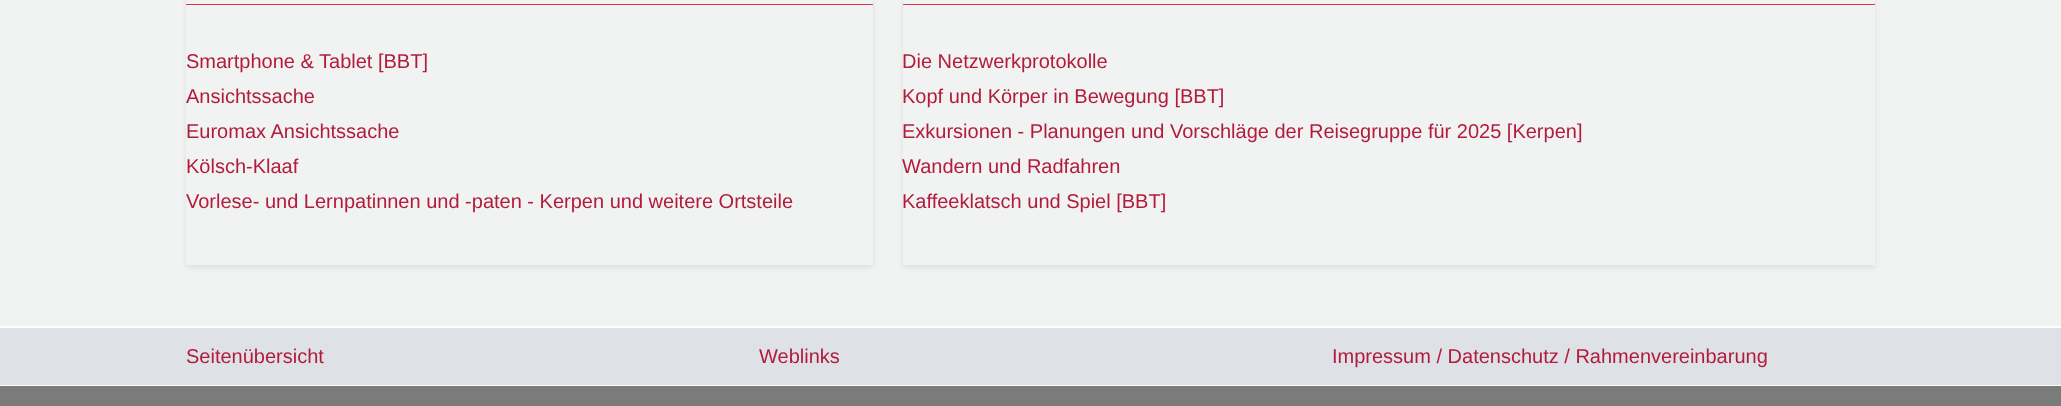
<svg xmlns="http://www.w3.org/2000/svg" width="2061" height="406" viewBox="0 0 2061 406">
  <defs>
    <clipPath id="clip1"><path d="M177 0H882V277H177ZM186-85H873V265H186Z" clip-rule="evenodd"/></clipPath>
    <clipPath id="clip2"><path d="M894 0H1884V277H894ZM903-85H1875V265H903Z" clip-rule="evenodd"/></clipPath>
  </defs>
  <rect width="100%" height="100%" fill="rgb(255,255,255)"/>
  <rect x="0" y="0" width="2061" height="326" fill="rgb(241,242,242)"/>
  <g clip-path="url(#clip1)">
    <rect x="186" y="-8" width="687" height="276" fill="rgba(0,0,0,0.07)" filter="blur(2.5px)"/>
  </g>
  <rect x="186" y="4" width="687" height="1" fill="rgb(220,53,69)"/>
  <g font-family="Liberation Sans" font-size="20" fill="rgb(178,27,59)">
    <text>
      <tspan x="186" y="68">Smartphone &amp; Tablet [BBT]</tspan>
      <tspan x="186" y="103">Ansichtssache</tspan>
      <tspan x="186" y="138">Euromax Ansichtssache</tspan>
      <tspan x="186" y="173">Kölsch-Klaaf</tspan>
      <tspan x="186" y="208">Vorlese- und Lernpatinnen und -paten - Kerpen und weitere Ortsteile</tspan>
    </text>
  </g>
  <g clip-path="url(#clip2)">
    <rect x="903" y="-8" width="972" height="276" fill="rgba(0,0,0,0.07)" filter="blur(2.5px)"/>
  </g>
  <rect x="903" y="4" width="972" height="1" fill="rgb(220,53,69)"/>
  <g font-family="Liberation Sans" font-size="20" fill="rgb(178,27,59)">
    <text>
      <tspan x="902" y="68">Die Netzwerkprotokolle</tspan>
      <tspan x="902" y="103">Kopf und Körper in Bewegung [BBT]</tspan>
      <tspan x="902" y="138">Exkursionen - Planungen und Vorschläge der Reisegruppe für 2025 [Kerpen]</tspan>
      <tspan x="902" y="173">Wandern und Radfahren</tspan>
      <tspan x="902" y="208">Kaffeeklatsch und Spiel [BBT]</tspan>
    </text>
  </g>
  <rect x="0" y="328" width="2061" height="57" fill="rgb(222,226,230)"/>
  <g font-family="Liberation Sans" font-size="20" fill="rgb(178,27,59)">
    <text x="186" y="363">Seitenübersicht</text>
    <text x="759" y="363">Weblinks</text>
    <text x="1332" y="363">Impressum / Datenschutz / Rahmenvereinbarung</text>
  </g>
  <rect x="0" y="386" width="2061" height="20" fill="rgb(123,123,123)"/>
</svg>
